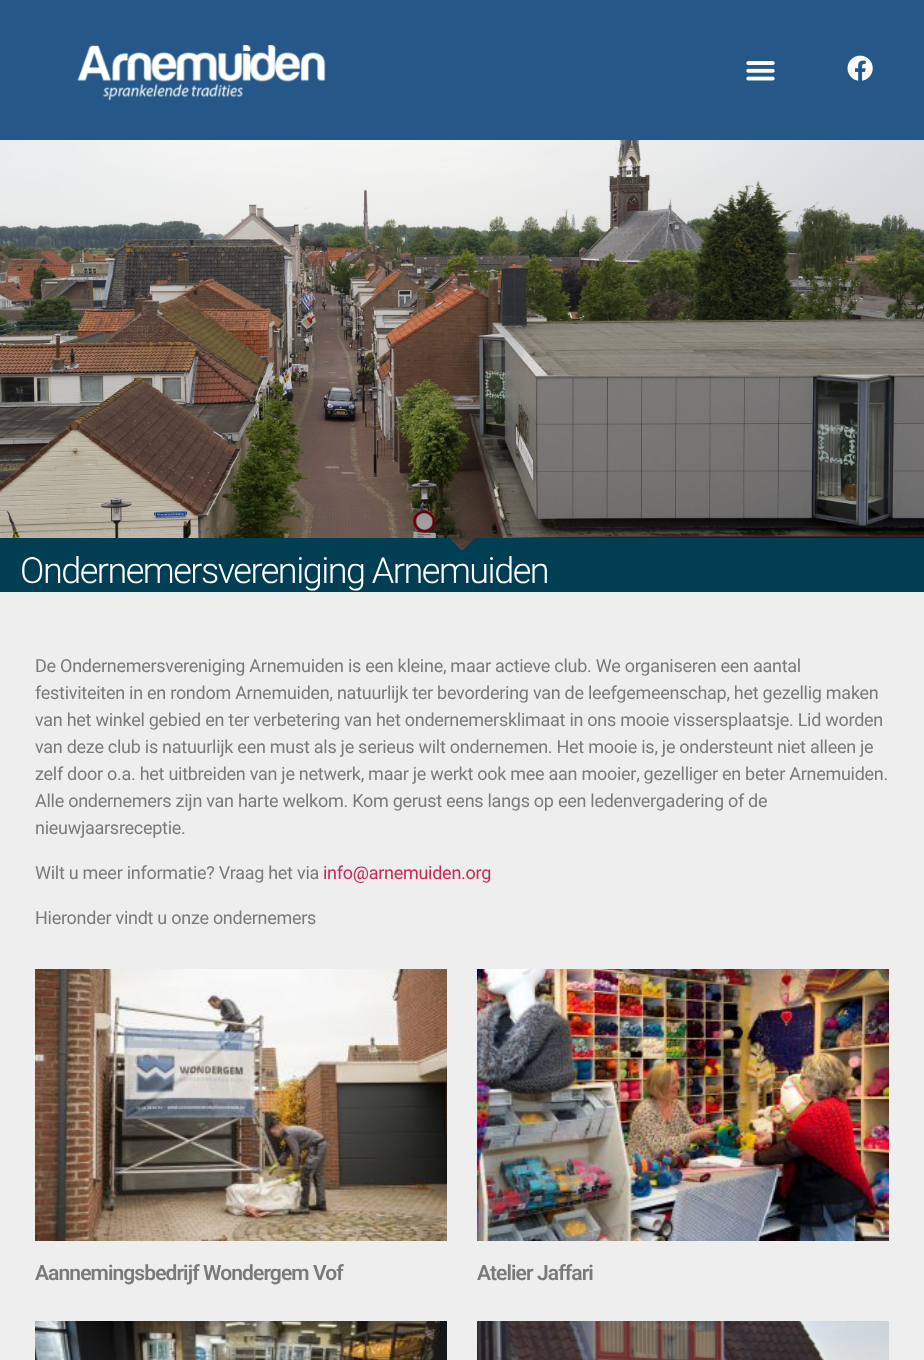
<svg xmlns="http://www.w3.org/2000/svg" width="924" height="1360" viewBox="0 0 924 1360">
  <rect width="100%" height="100%" fill="rgb(255,255,255)"/>
  <rect x="0" y="0" width="924" height="140" fill="rgb(37,88,137)"/>
  <image x="77" y="45" width="249" height="55" href="pic1.png"/>
  <image x="746" y="61" width="29" height="20" href="pic2.png"/>
  <image x="847" y="55" width="26" height="26" href="pic3.png"/>
  <image x="0" y="140" width="924" height="410" href="pic4.png"/>
  <path d="M475 538L462 551L449 538H0V551H924V538" fill="rgb(0,62,83)"/>
  <rect x="0" y="550" width="924" height="42" fill="rgb(0,62,83)"/>
  <text x="20" y="583" font-family="Roboto" font-size="36" font-weight="300" letter-spacing="-1.5" fill="rgb(255,255,255)">Ondernemersvereniging Arnemuiden</text>
  <rect x="0" y="592" width="924" height="768" fill="rgb(238,238,238)"/>
  <g font-family="Roboto" font-size="18" letter-spacing="-0.27" fill="rgb(122,122,122)">
    <text>
      <tspan x="35" y="672">De Ondernemersvereniging Arnemuiden is een kleine, maar actieve club. We organiseren een aantal</tspan>
      <tspan x="35" y="699">festiviteiten in en rondom Arnemuiden, natuurlijk ter bevordering van de leefgemeenschap, het gezellig maken</tspan>
      <tspan x="35" y="726">van het winkel gebied en ter verbetering van het ondernemersklimaat in ons mooie vissersplaatsje. Lid worden</tspan>
      <tspan x="35" y="753">van deze club is natuurlijk een must als je serieus wilt ondernemen. Het mooie is, je ondersteunt niet alleen je</tspan>
      <tspan x="35" y="780">zelf door o.a. het uitbreiden van je netwerk, maar je werkt ook mee aan mooier, gezelliger en beter Arnemuiden.</tspan>
      <tspan x="35" y="807">Alle ondernemers zijn van harte welkom. Kom gerust eens langs op een ledenvergadering of de</tspan>
      <tspan x="35" y="834">nieuwjaarsreceptie.</tspan>
    </text>
    <text x="35" y="879">Wilt u meer informatie? Vraag het via</text>
  </g>
  <text x="323" y="879" font-family="Roboto" font-size="18" letter-spacing="-0.27" fill="rgb(205,38,83)">info@arnemuiden.org</text>
  <text x="35" y="924" font-family="Roboto" font-size="18" letter-spacing="-0.27" fill="rgb(122,122,122)">Hieronder vindt u onze ondernemers</text>
  <image x="35" y="969" width="412" height="272" href="pic5.png"/>
  <text x="35" y="1280" font-family="Roboto" font-size="21" font-weight="600" letter-spacing="-0.9" fill="rgb(122,122,122)">Aannemingsbedrijf Wondergem Vof</text>
  <image x="477" y="969" width="412" height="272" href="pic6.png"/>
  <text x="477" y="1280" font-family="Roboto" font-size="21" font-weight="600" letter-spacing="-0.9" fill="rgb(122,122,122)">Atelier Jaffari</text>
  <image x="35" y="1321" width="412" height="39" href="pic7.png"/>
  <image x="477" y="1321" width="412" height="39" href="pic8.png"/>
</svg>
